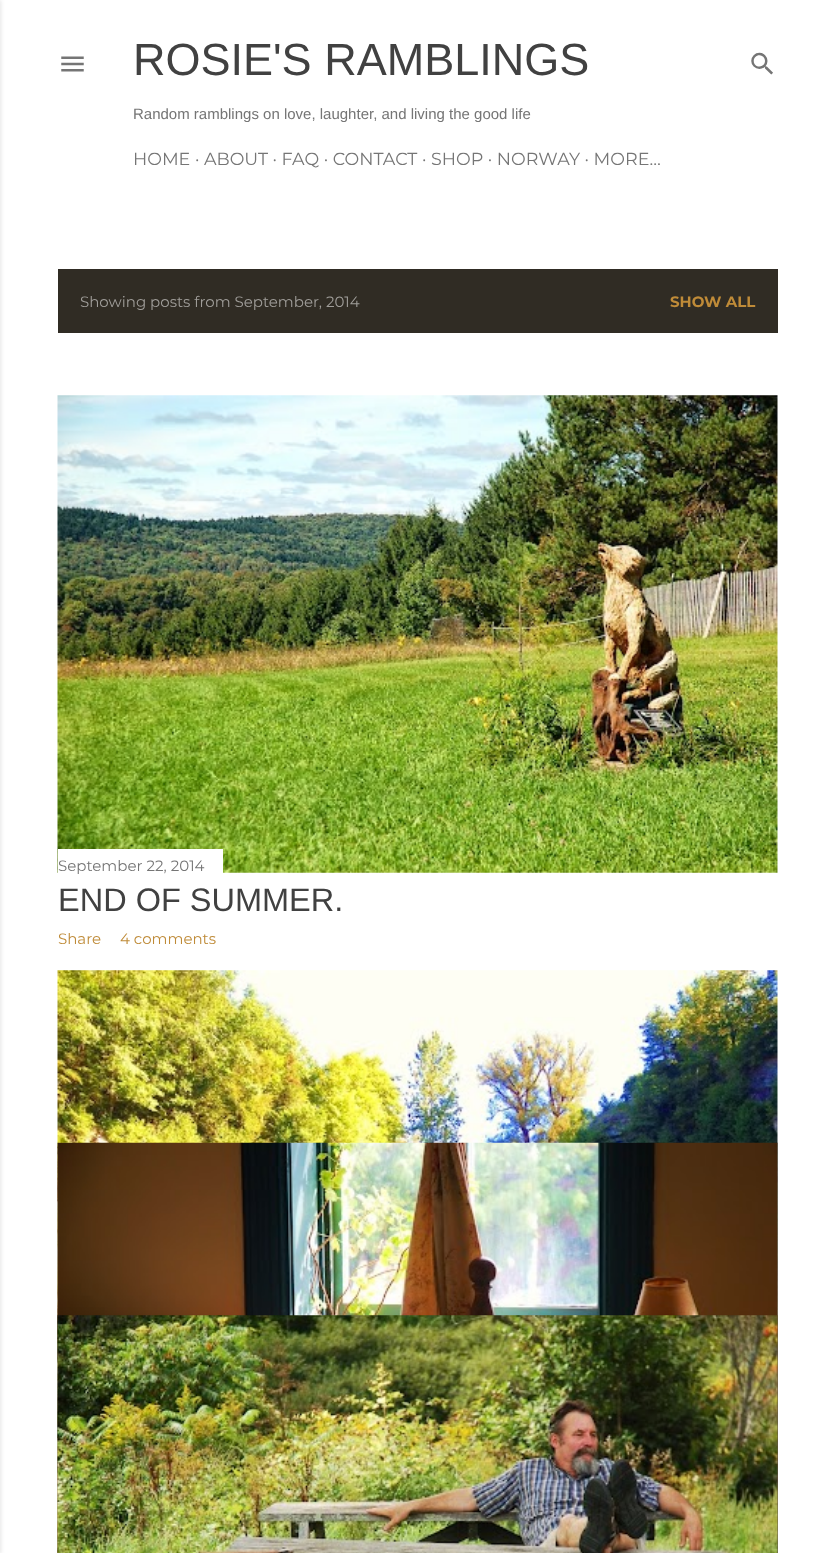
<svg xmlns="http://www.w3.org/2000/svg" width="835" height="1553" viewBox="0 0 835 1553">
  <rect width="100%" height="100%" fill="rgb(255,255,255)"/>
  <rect x="-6" y="0" width="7" height="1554" fill="rgba(0,0,0,0.1)" filter="blur(2px)"/>
  <image x="61" y="56" width="23" height="16" href="pic1.png"/>
  <text x="133" y="75" font-family="Arimo" font-size="45" fill="rgb(65,65,65)">ROSIE'S RAMBLINGS</text>
  <text x="133" y="119" font-family="Arimo" font-size="15" fill="rgb(117,117,117)">Random ramblings on love, laughter, and living the good life</text>
  <text x="133" y="165" font-family="Montserrat" font-size="17.5" fill="rgb(117,117,117)">HOME · ABOUT · FAQ · CONTACT · SHOP · NORWAY · MORE…</text>
  <image x="751" y="52" width="22" height="23" href="pic2.png"/>
  <rect x="58" y="269" width="720" height="64" fill="rgb(48,44,36)"/>
  <text x="80" y="307" font-family="Montserrat" font-size="15" fill="rgb(160,158,154)">Showing posts from September, 2014</text>
  <text x="670" y="307" font-family="Montserrat" font-size="15" font-weight="bold" fill="rgb(191,139,56)">SHOW ALL</text>
  <image x="57" y="395" width="721" height="478" href="pic3.png"/>
  <rect x="58" y="849" width="165" height="24" fill="rgb(255,255,255)"/>
  <text x="58" y="871" font-family="Montserrat" font-size="15" fill="rgb(117,117,117)">September 22, 2014</text>
  <text x="58" y="911" font-family="Arimo" font-size="32.5" fill="rgb(65,65,65)">END OF SUMMER.</text>
  <g font-family="Montserrat" font-size="15" fill="rgb(191,139,56)">
    <text x="58" y="944">Share</text>
    <text x="120" y="944">4 comments</text>
  </g>
  <image x="57" y="970" width="721" height="583" href="pic4.png"/>
  <image x="57" y="1142" width="721" height="411" href="pic5.png"/>
  <image x="57" y="1315" width="721" height="238" href="pic6.png"/>
</svg>
